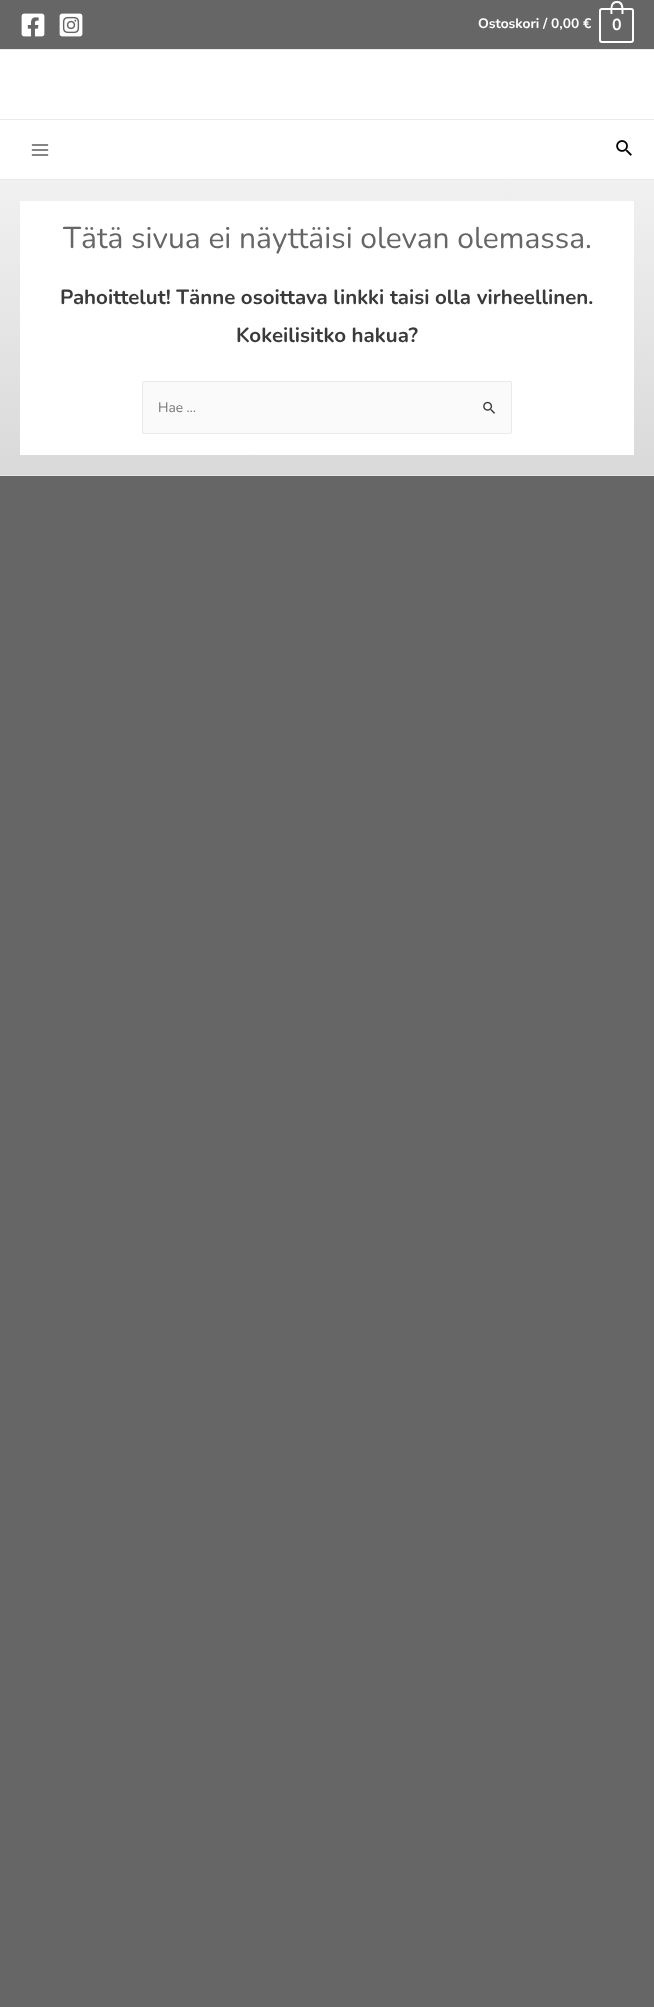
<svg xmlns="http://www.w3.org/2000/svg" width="654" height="2007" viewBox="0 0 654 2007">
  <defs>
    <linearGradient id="g1" gradientUnits="userSpaceOnUse" x1="327" y1="0" x2="327" y2="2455"><stop offset="0" stop-color="rgb(255,255,255)"/><stop offset="0.78" stop-color="rgb(102,102,102)"/></linearGradient>
  </defs>
  <rect width="100%" height="100%" fill="rgb(255,255,255)"/>
  <rect x="0" y="180" width="654" height="295" fill="url(#g1)"/>
  <rect x="0" y="0" width="654" height="49" fill="rgb(102,102,102)"/>
  <rect x="0" y="49" width="654" height="1" fill="rgb(234,234,234)"/>
  <image x="21" y="13" width="24" height="24" href="pic1.png"/>
  <image x="59" y="13" width="24" height="24" href="pic2.png"/>
  <text x="478" y="28" font-family="Nunito" font-size="13.75" font-weight="bold" fill="rgb(255,255,255)">Ostoskori / 0,00 €</text>
  <rect x="600" y="9" width="33" height="33" rx="2" fill="none" stroke="rgb(255,255,255)" stroke-width="2"/>
  <path d="M617 1C624.5 1 623.5 9 623.5 14H610.5C610.5 9 609.5 1 617 1ZM617 3C622.5 3 621.5 10.5 621.5 14H612.5C612.5 10.5 611 3 617 3Z" fill="rgb(255,255,255)" fill-rule="evenodd"/>
  <text x="612" y="30" font-family="Nunito" font-size="16" font-weight="bold" fill="rgb(255,255,255)">0</text>
  <rect x="0" y="119" width="654" height="1" fill="rgb(234,234,234)"/>
  <rect x="0" y="179" width="654" height="1" fill="rgb(234,234,234)"/>
  <image x="31" y="144" width="18" height="12" href="pic3.png"/>
  <image x="616" y="140" width="16" height="16" href="pic4.png"/>
  <rect x="20" y="201" width="614" height="254" fill="rgb(255,255,255)"/>
  <text x="63" y="248" font-family="Nunito" font-size="30" fill="rgb(102,102,102)">Tätä sivua ei näyttäisi olevan olemassa.</text>
  <g font-family="Nunito" font-size="20.5" font-weight="bold" fill="rgb(58,58,58)">
    <text x="60" y="304">Pahoittelut! Tänne osoittava linkki taisi olla virheellinen.</text>
    <text x="236" y="342">Kokeilisitko hakua?</text>
  </g>
  <rect x="142.5" y="381.5" width="369" height="52" rx="1.5" fill="rgb(250,250,250)" stroke="rgb(234,234,234)"/>
  <text x="158" y="412" font-family="Nunito" font-size="13.75" fill="rgb(117,117,117)">Hae …</text>
  <image x="483" y="401" width="12" height="13" href="pic5.png"/>
  <rect x="0" y="476" width="654" height="1531" fill="rgb(102,102,102)"/>
  <rect x="0" y="475" width="654" height="1" fill="rgb(230,230,230)"/>
</svg>
